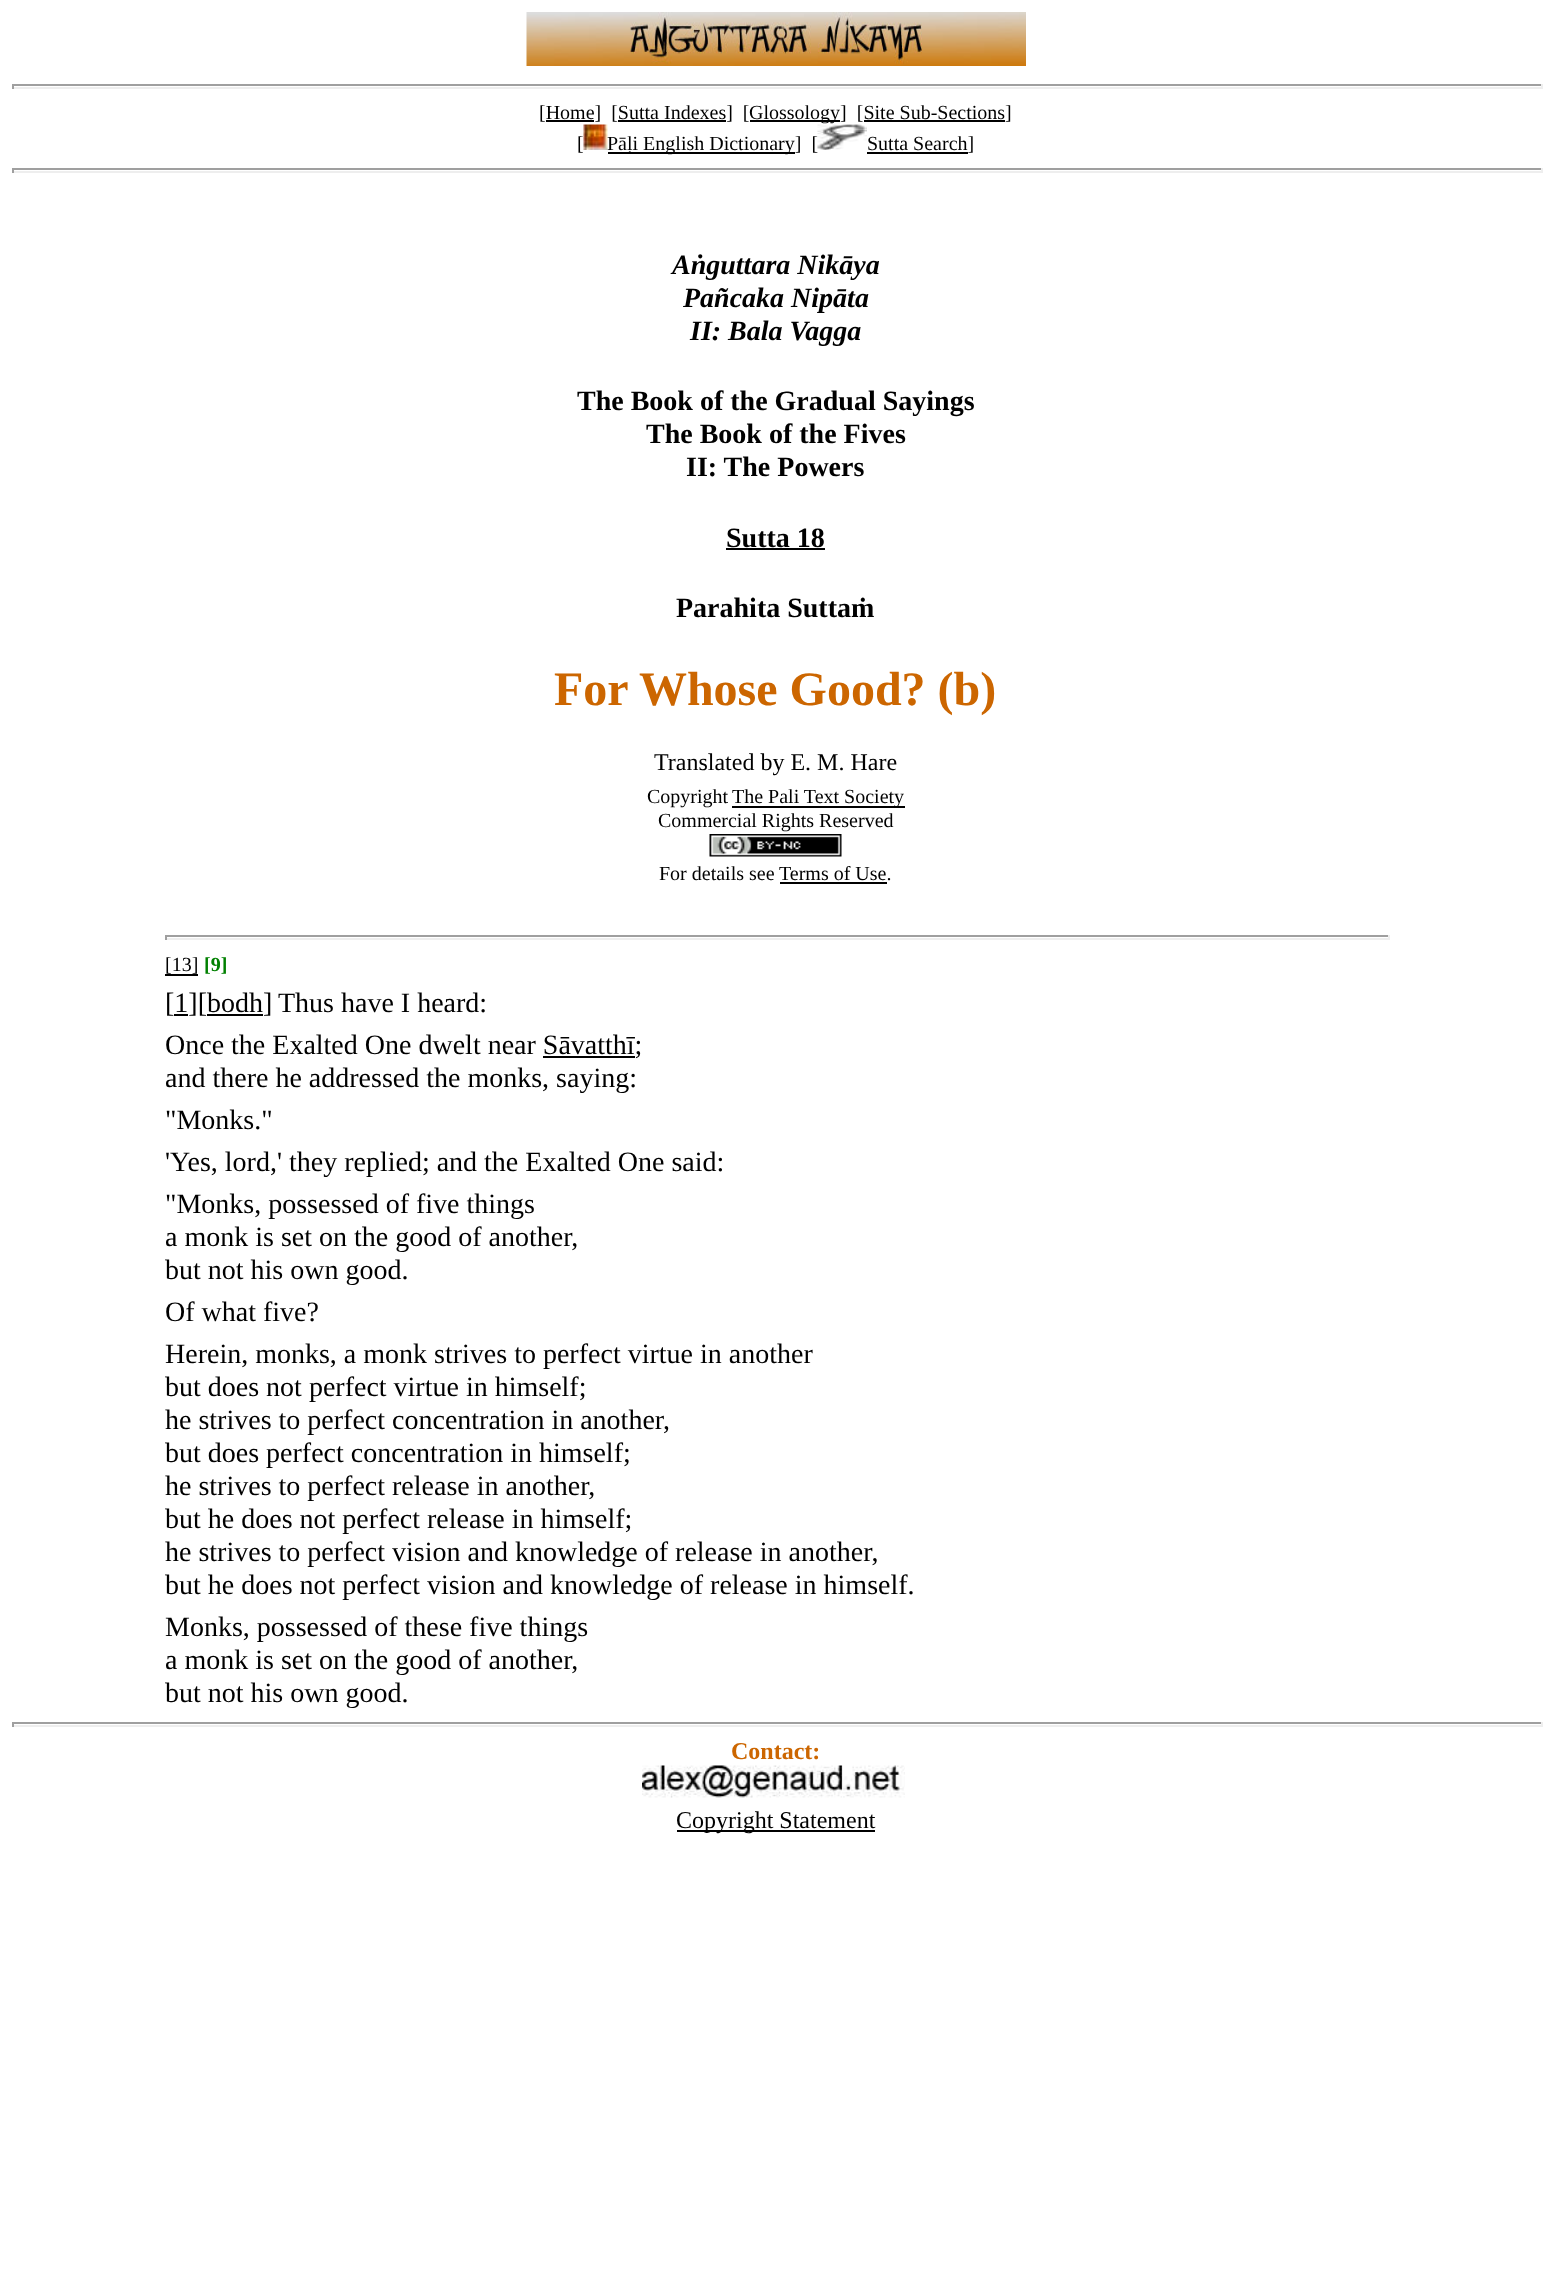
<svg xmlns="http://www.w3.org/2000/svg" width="1551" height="2282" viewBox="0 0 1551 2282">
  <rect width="100%" height="100%" fill="rgb(255,255,255)"/>
  <image x="526" y="12" width="500" height="54" href="pic1.png"/>
  <rect x="12" y="84" width="1530" height="2" fill="rgb(159,159,159)"/>
  <rect x="1541" y="84" width="2" height="5" fill="rgb(238,238,238)"/>
  <rect x="12" y="87" width="1530" height="2" fill="rgb(238,238,238)"/>
  <rect x="12" y="84" width="2" height="5" fill="rgb(159,159,159)"/>
  <text x="539" y="119" font-family="Liberation Serif" font-size="20" fill="rgb(0,0,0)" xml:space="preserve">[Home]  [Sutta Indexes]  [</text>
  <rect x="750" y="120" width="90" height="2" fill="rgb(0,0,0)"/>
  <text x="749" y="119" font-family="Liberation Serif" font-size="20" fill="rgb(0,0,0)" xml:space="preserve">Glossology]  [Site Sub-Sections]</text>
  <rect x="546" y="120" width="48" height="2" fill="rgb(0,0,0)"/>
  <rect x="618" y="120" width="108" height="2" fill="rgb(0,0,0)"/>
  <rect x="864" y="120" width="141" height="2" fill="rgb(0,0,0)"/>
  <text x="577" y="150" font-family="Liberation Serif" font-size="20" fill="rgb(0,0,0)">[</text>
  <image x="583" y="124" width="25" height="26" href="pic2.png"/>
  <rect x="608" y="152" width="187" height="2" fill="rgb(0,0,0)"/>
  <text x="607" y="150" font-family="Liberation Serif" font-size="20" fill="rgb(0,0,0)" xml:space="preserve">Pāḷi English Dictionary]  [</text>
  <image x="817" y="124" width="50" height="26" href="pic3.png"/>
  <rect x="867" y="152" width="101" height="2" fill="rgb(0,0,0)"/>
  <text x="867" y="150" font-family="Liberation Serif" font-size="20" fill="rgb(0,0,0)">Sutta Search]</text>
  <rect x="12" y="168" width="1530" height="2" fill="rgb(159,159,159)"/>
  <rect x="1541" y="168" width="2" height="5" fill="rgb(238,238,238)"/>
  <rect x="12" y="171" width="1530" height="2" fill="rgb(238,238,238)"/>
  <rect x="12" y="168" width="2" height="5" fill="rgb(159,159,159)"/>
  <g font-family="Liberation Serif" font-size="28" font-weight="bold" font-style="italic" fill="rgb(0,0,0)">
    <text x="672" y="274">Aṅguttara Nikāya</text>
    <text x="683" y="307">Pañcaka Nipāta</text>
    <text x="690" y="340">II: Bala Vagga</text>
  </g>
  <g font-family="Liberation Serif" font-size="28" font-weight="bold" fill="rgb(0,0,0)">
    <text x="577" y="410">The Book of the Gradual Sayings</text>
    <text x="646" y="443">The Book of the Fives</text>
    <text x="686" y="476">II: The Powers</text>
    <text x="726" y="547">Sutta 18</text>
  </g>
  <rect x="726" y="548" width="99" height="2" fill="rgb(0,0,0)"/>
  <text x="676" y="617" font-family="Liberation Serif" font-size="28" font-weight="bold" fill="rgb(0,0,0)">Parahita Suttaṁ</text>
  <text x="554" y="705" font-family="Liberation Serif" font-size="48" font-weight="bold" fill="rgb(204,102,0)">For Whose Good? (b)</text>
  <text x="654" y="770" font-family="Liberation Serif" font-size="24" fill="rgb(0,0,0)">Translated by E. M. Hare</text>
  <text x="647" y="803" font-family="Liberation Serif" font-size="20" fill="rgb(0,0,0)">Copyright</text>
  <rect x="732" y="806" width="173" height="2" fill="rgb(0,0,0)"/>
  <g font-family="Liberation Serif" font-size="20" fill="rgb(0,0,0)">
    <text x="732" y="803">The Pali Text Society</text>
    <text x="658" y="827">Commercial Rights Reserved</text>
  </g>
  <image x="709" y="834" width="133" height="23" href="pic4.png"/>
  <g font-family="Liberation Serif" font-size="20" fill="rgb(0,0,0)">
    <text x="659" y="880">For details see</text>
    <text x="779" y="880">Terms of Use.</text>
  </g>
  <rect x="780" y="882" width="107" height="2" fill="rgb(0,0,0)"/>
  <rect x="165" y="935" width="1224" height="2" fill="rgb(159,159,159)"/>
  <rect x="1388" y="935" width="2" height="5" fill="rgb(238,238,238)"/>
  <rect x="165" y="938" width="1224" height="2" fill="rgb(238,238,238)"/>
  <rect x="165" y="935" width="2" height="5" fill="rgb(159,159,159)"/>
  <text x="165" y="971" font-family="Liberation Serif" font-size="20" fill="rgb(0,0,0)">[13]</text>
  <rect x="165" y="974" width="33" height="2" fill="rgb(0,0,0)"/>
  <text x="204" y="971" font-family="Liberation Serif" font-size="20" font-weight="bold" fill="rgb(0,128,0)">[9]</text>
  <text x="165" y="1012" font-family="Liberation Serif" font-size="28" fill="rgb(0,0,0)">[1][bodh]</text>
  <rect x="174" y="1014" width="14" height="2" fill="rgb(0,0,0)"/>
  <rect x="207" y="1014" width="56" height="2" fill="rgb(0,0,0)"/>
  <g font-family="Liberation Serif" font-size="28" fill="rgb(0,0,0)">
    <text x="278" y="1012">Thus have I heard:</text>
    <text x="165" y="1054">Once the Exalted One dwelt near Sāvatthī;</text>
  </g>
  <rect x="543" y="1056" width="92" height="2" fill="rgb(0,0,0)"/>
  <g font-family="Liberation Serif" font-size="28" fill="rgb(0,0,0)">
    <text>
      <tspan x="165" y="1087">and there he addressed the monks, saying:</tspan>
      <tspan x="165" y="1129">"Monks."</tspan>
      <tspan x="165" y="1171">'Yes, lord,' they replied; and the Exalted One said:</tspan>
      <tspan x="165" y="1213">"Monks, possessed of five things</tspan>
      <tspan x="165" y="1246">a monk is set on the good of another,</tspan>
      <tspan x="165" y="1279">but not his own good.</tspan>
      <tspan x="165" y="1321">Of what five?</tspan>
      <tspan x="165" y="1363">Herein, monks, a monk strives to perfect virtue in another</tspan>
      <tspan x="165" y="1396">but does not perfect virtue in himself;</tspan>
      <tspan x="165" y="1429">he strives to perfect concentration in another,</tspan>
      <tspan x="165" y="1462">but does perfect concentration in himself;</tspan>
      <tspan x="165" y="1495">he strives to perfect release in another,</tspan>
      <tspan x="165" y="1528">but he does not perfect release in himself;</tspan>
      <tspan x="165" y="1561">he strives to perfect vision and knowledge of release in another,</tspan>
      <tspan x="165" y="1594">but he does not perfect vision and knowledge of release in himself.</tspan>
      <tspan x="165" y="1636">Monks, possessed of these five things</tspan>
      <tspan x="165" y="1669">a monk is set on the good of another,</tspan>
      <tspan x="165" y="1702">but not his own good.</tspan>
    </text>
  </g>
  <rect x="12" y="1722" width="1530" height="2" fill="rgb(159,159,159)"/>
  <rect x="1541" y="1722" width="2" height="5" fill="rgb(238,238,238)"/>
  <rect x="12" y="1725" width="1530" height="2" fill="rgb(238,238,238)"/>
  <rect x="12" y="1722" width="2" height="5" fill="rgb(159,159,159)"/>
  <text x="731" y="1759" font-family="Liberation Serif" font-size="24" font-weight="bold" fill="rgb(204,102,0)">Contact:</text>
  <image x="642" y="1765" width="263" height="33" href="pic5.png"/>
  <rect x="677" y="1830" width="198" height="2" fill="rgb(0,0,0)"/>
  <text x="676" y="1828" font-family="Liberation Serif" font-size="24" fill="rgb(0,0,0)">Copyright Statement</text>
</svg>
